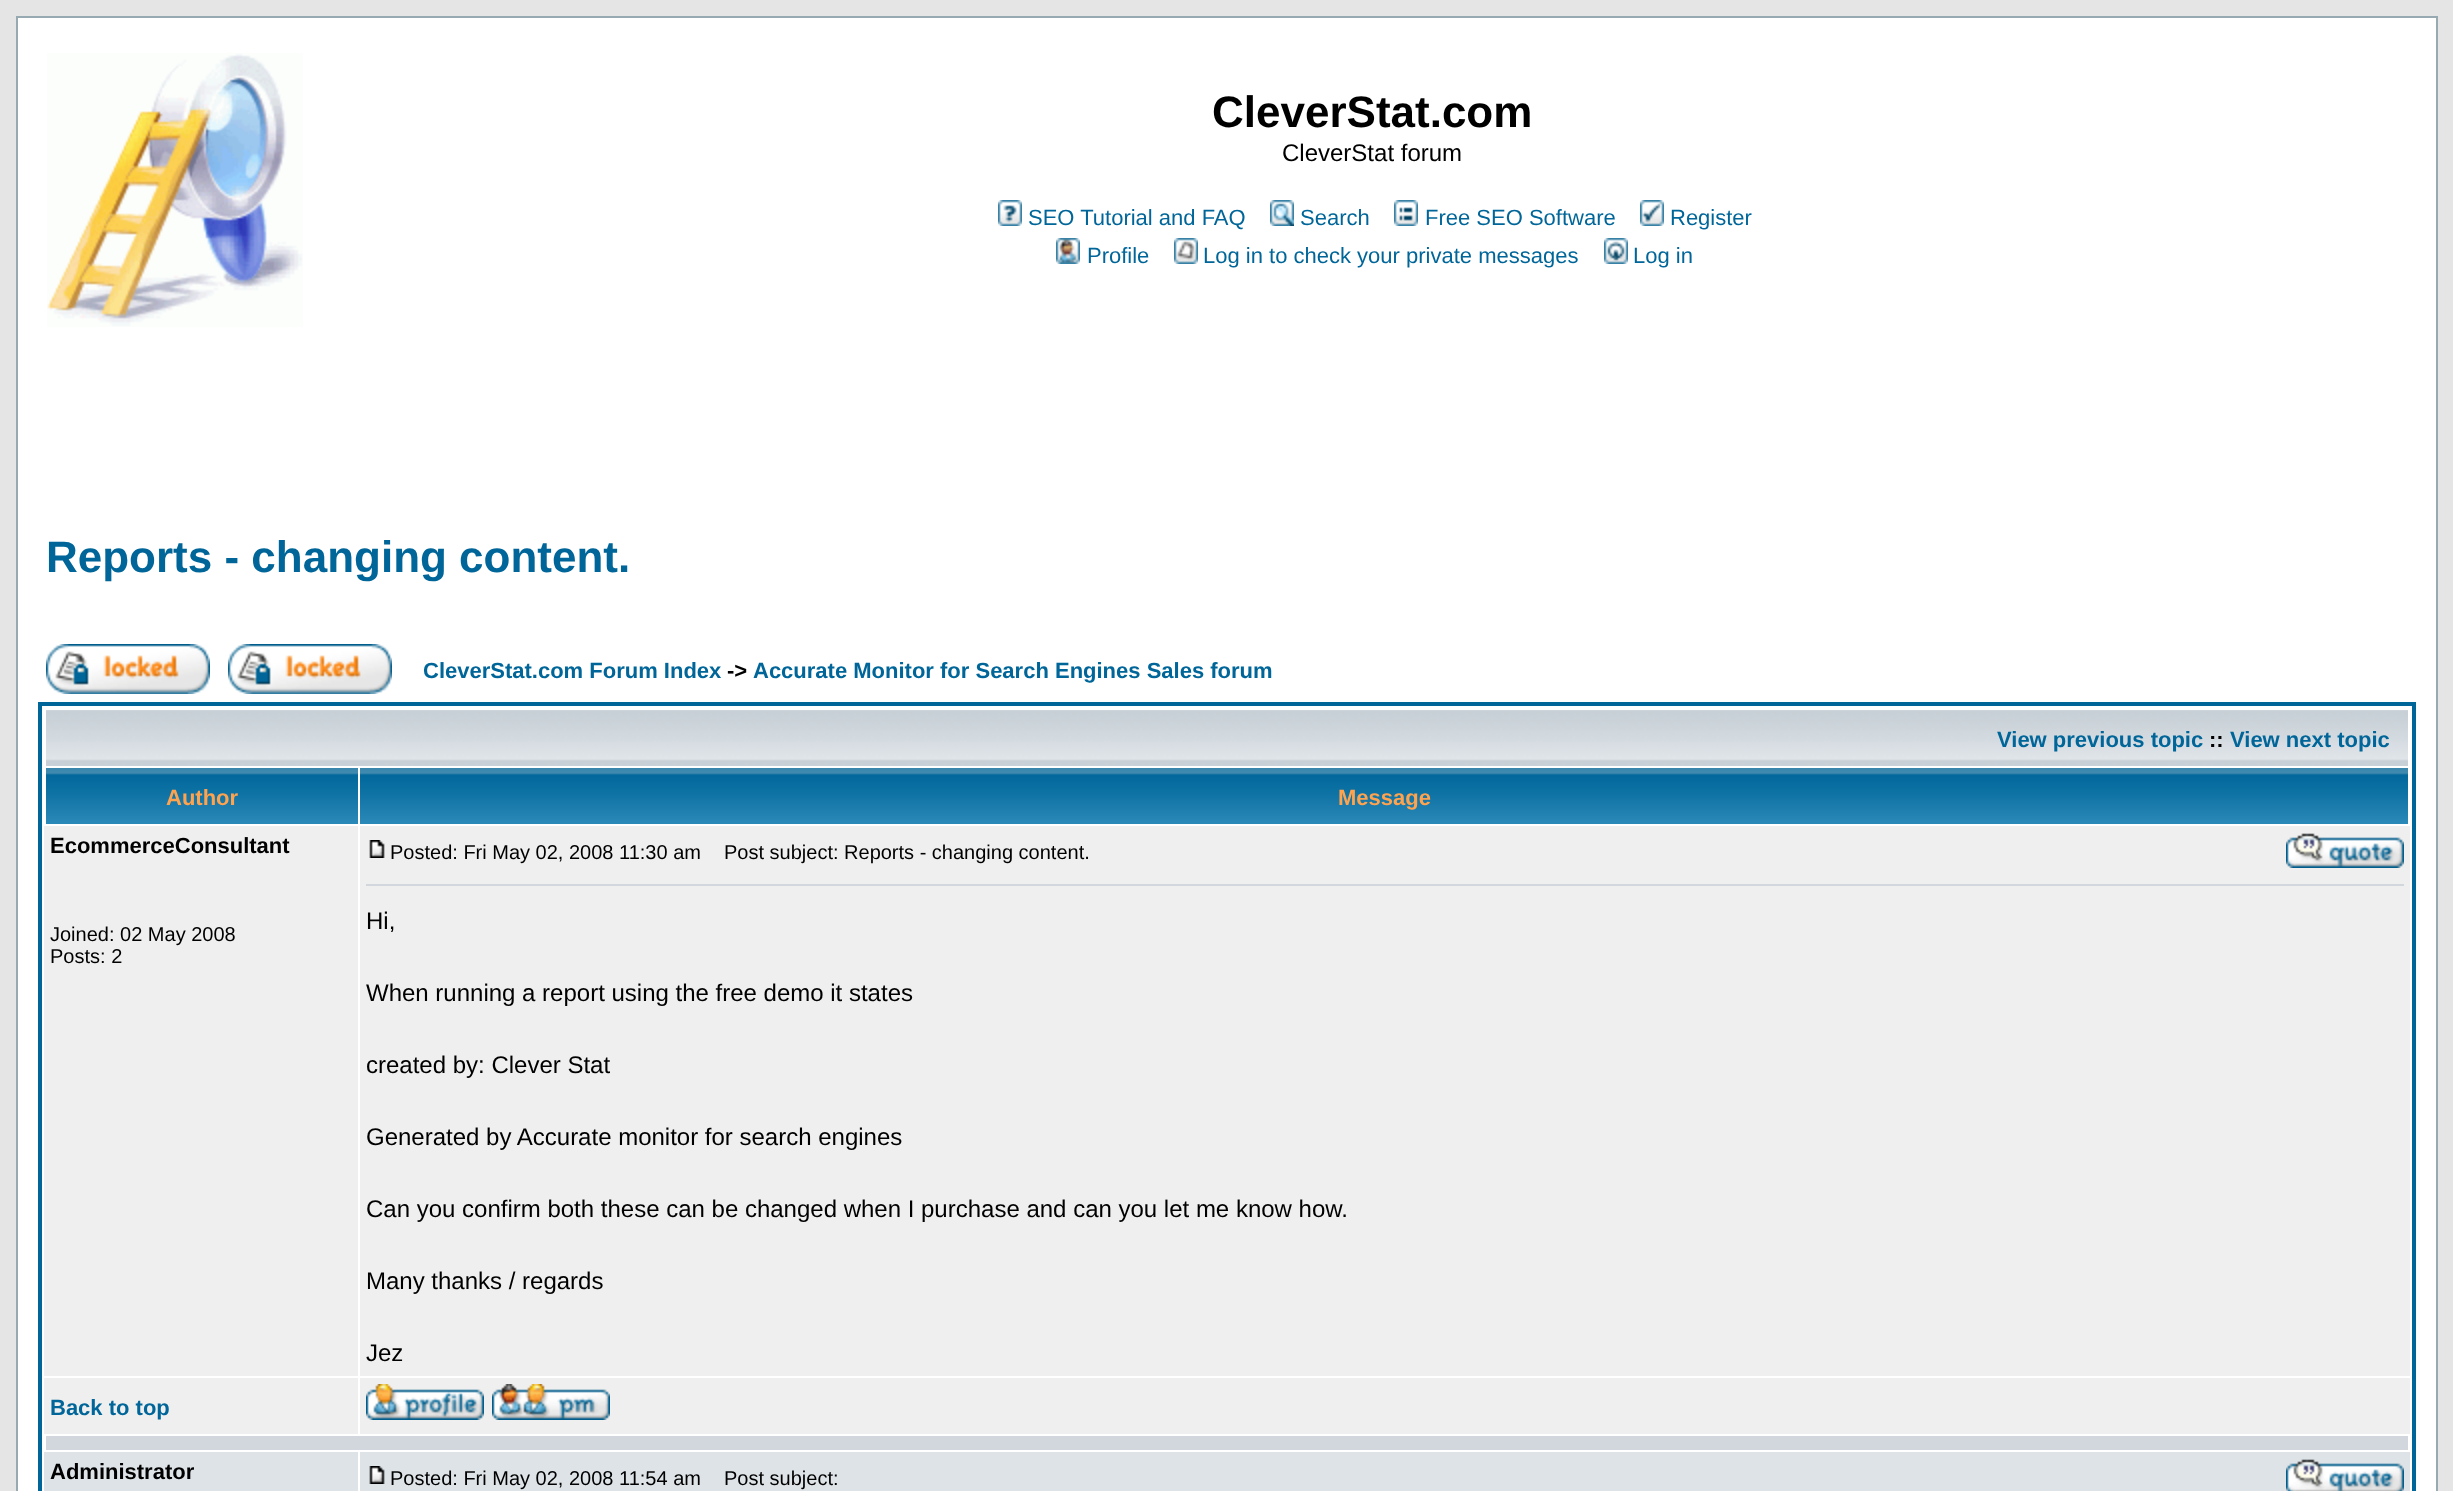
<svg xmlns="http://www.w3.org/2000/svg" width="2453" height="1491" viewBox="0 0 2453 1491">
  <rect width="100%" height="100%" fill="rgb(229,229,229)"/>
  <rect x="17" y="17" width="2420" height="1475" fill="rgb(255,255,255)" stroke="rgb(152,170,177)" stroke-width="2"/>
  <image x="47" y="53" width="256" height="274" href="pic1.png"/>
  <text x="1212" y="127" font-family="Liberation Sans" font-size="44" font-weight="bold" fill="rgb(0,0,0)">CleverStat.com</text>
  <text x="1282" y="161" font-family="Liberation Sans" font-size="24" fill="rgb(0,0,0)">CleverStat forum</text>
  <image x="998" y="200" width="24" height="26" href="pic2.png"/>
  <text x="1028" y="225" font-family="Liberation Sans" font-size="22" fill="rgb(0,102,153)">SEO Tutorial and FAQ</text>
  <image x="1270" y="200" width="24" height="26" href="pic3.png"/>
  <text x="1300" y="225" font-family="Liberation Sans" font-size="22" fill="rgb(0,102,153)">Search</text>
  <image x="1394" y="200" width="24" height="26" href="pic4.png"/>
  <text x="1425" y="225" font-family="Liberation Sans" font-size="22" fill="rgb(0,102,153)">Free SEO Software</text>
  <image x="1640" y="200" width="24" height="26" href="pic5.png"/>
  <text x="1670" y="225" font-family="Liberation Sans" font-size="22" fill="rgb(0,102,153)">Register</text>
  <image x="1056" y="238" width="24" height="26" href="pic6.png"/>
  <text x="1087" y="263" font-family="Liberation Sans" font-size="22" fill="rgb(0,102,153)">Profile</text>
  <image x="1174" y="238" width="24" height="26" href="pic7.png"/>
  <text x="1203" y="263" font-family="Liberation Sans" font-size="22" fill="rgb(0,102,153)">Log in to check your private messages</text>
  <image x="1604" y="238" width="24" height="26" href="pic8.png"/>
  <text x="1633" y="263" font-family="Liberation Sans" font-size="22" fill="rgb(0,102,153)">Log in</text>
  <text x="46" y="572" font-family="Liberation Sans" font-size="44" font-weight="bold" fill="rgb(0,102,153)">Reports - changing content.</text>
  <image x="46" y="644" width="164" height="50" href="pic9.png"/>
  <image x="228" y="644" width="164" height="50" href="pic9.png"/>
  <text x="423" y="678" font-family="Liberation Sans" font-size="22" font-weight="bold" fill="rgb(0,102,153)">CleverStat.com Forum Index</text>
  <text x="727" y="678" font-family="Liberation Sans" font-size="22" font-weight="bold" fill="rgb(0,0,0)">-&gt;</text>
  <text x="753" y="678" font-family="Liberation Sans" font-size="22" font-weight="bold" fill="rgb(0,102,153)">Accurate Monitor for Search Engines Sales forum</text>
  <rect x="40" y="704" width="2374" height="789" fill="none" stroke="rgb(0,102,153)" stroke-width="4"/>
  <image x="46" y="710" width="2362" height="56" href="pic10.png"/>
  <text x="1997" y="747" font-family="Liberation Sans" font-size="22" font-weight="bold" fill="rgb(0,102,153)">View previous topic</text>
  <text x="2209" y="747" font-family="Liberation Sans" font-size="22" font-weight="bold" fill="rgb(0,0,0)">::</text>
  <text x="2230" y="747" font-family="Liberation Sans" font-size="22" font-weight="bold" fill="rgb(0,102,153)">View next topic</text>
  <image x="46" y="768" width="312" height="56" href="pic11.png"/>
  <text x="166" y="805" font-family="Liberation Sans" font-size="22" font-weight="bold" fill="rgb(255,163,79)">Author</text>
  <image x="360" y="768" width="2048" height="56" href="pic12.png"/>
  <text x="1338" y="805" font-family="Liberation Sans" font-size="22" font-weight="bold" fill="rgb(255,163,79)">Message</text>
  <rect x="44" y="826" width="314" height="550" fill="rgb(239,239,239)"/>
  <text x="50" y="853" font-family="Liberation Sans" font-size="22" font-weight="bold" fill="rgb(0,0,0)">EcommerceConsultant</text>
  <g font-family="Liberation Sans" font-size="20" fill="rgb(0,0,0)">
    <text>
      <tspan x="50" y="941">Joined: 02 May 2008</tspan>
      <tspan x="50" y="963">Posts: 2</tspan>
    </text>
  </g>
  <rect x="360" y="826" width="2050" height="550" fill="rgb(239,239,239)"/>
  <image x="369" y="840" width="16" height="18" href="pic13.png"/>
  <g font-family="Liberation Sans" font-size="20" fill="rgb(0,0,0)">
    <text x="390" y="859">Posted: Fri May 02, 2008 11:30 am</text>
    <text x="724" y="859">Post subject: Reports - changing content.</text>
  </g>
  <image x="2286" y="833" width="118" height="35" href="pic14.png"/>
  <rect x="366" y="884" width="2038" height="2" fill="rgb(209,215,220)"/>
  <g font-family="Liberation Sans" font-size="24" fill="rgb(0,0,0)">
    <text x="366" y="929">Hi,</text>
    <text x="366" y="1001">When running a report using the free demo it states</text>
    <text x="366" y="1073">created by: Clever Stat</text>
    <text x="366" y="1145">Generated by Accurate monitor for search engines</text>
    <text x="366" y="1217">Can you confirm both these can be changed when I purchase and can you let me know how.</text>
    <text x="366" y="1289">Many thanks / regards</text>
    <text x="366" y="1361">Jez</text>
  </g>
  <rect x="44" y="1378" width="314" height="56" fill="rgb(239,239,239)"/>
  <text x="50" y="1415" font-family="Liberation Sans" font-size="22" font-weight="bold" fill="rgb(0,102,153)">Back to top</text>
  <rect x="360" y="1378" width="2050" height="56" fill="rgb(239,239,239)"/>
  <image x="366" y="1384" width="118" height="36" href="pic15.png"/>
  <image x="492" y="1384" width="118" height="36" href="pic16.png"/>
  <rect x="46" y="1436" width="2362" height="14" fill="rgb(209,215,220)"/>
  <rect x="44" y="1452" width="314" height="39" fill="rgb(222,227,231)"/>
  <text x="50" y="1479" font-family="Liberation Sans" font-size="22" font-weight="bold" fill="rgb(0,0,0)">Administrator</text>
  <rect x="360" y="1452" width="2050" height="39" fill="rgb(222,227,231)"/>
  <image x="369" y="1466" width="16" height="18" href="pic17.png"/>
  <g font-family="Liberation Sans" font-size="20" fill="rgb(0,0,0)">
    <text x="390" y="1485">Posted: Fri May 02, 2008 11:54 am</text>
    <text x="724" y="1485">Post subject:</text>
  </g>
  <image x="2286" y="1459" width="118" height="32" href="pic18.png"/>
</svg>
